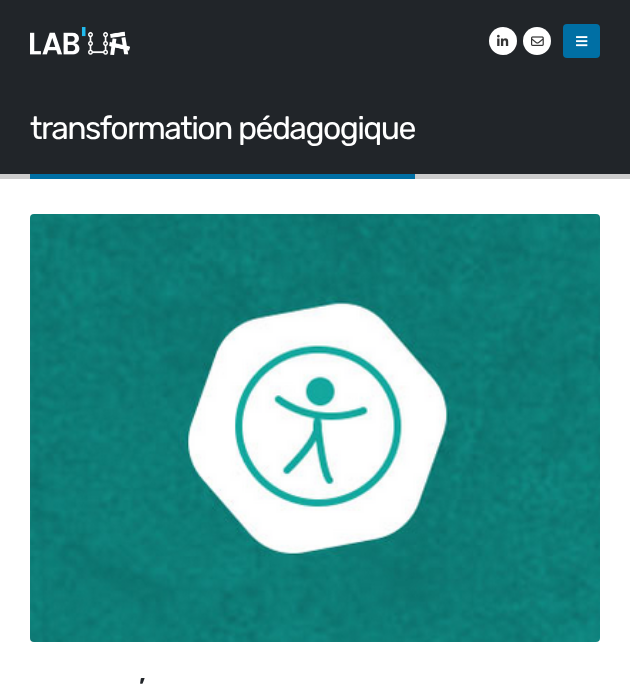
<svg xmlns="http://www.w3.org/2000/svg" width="630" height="687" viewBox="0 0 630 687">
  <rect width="100%" height="100%" fill="rgb(255,255,255)"/>
  <rect x="0" y="0" width="630" height="174" fill="rgb(33,37,41)"/>
  <image x="30" y="27" width="100" height="28" href="pic1.png"/>
  <circle cx="503" cy="41" r="14" fill="rgb(255,255,255)"/>
  <image x="497" y="34" width="12" height="12" href="pic2.png"/>
  <circle cx="537" cy="41" r="14" fill="rgb(255,255,255)"/>
  <image x="531" y="36" width="13" height="10" href="pic3.png"/>
  <rect x="563" y="24" width="37" height="34" rx="4" fill="rgb(0,111,164)"/>
  <image x="576" y="36" width="12" height="11" href="pic4.png"/>
  <rect x="0" y="174" width="630" height="5" fill="rgb(204,204,204)"/>
  <text x="30" y="139" font-family="Rubik" font-size="32" letter-spacing="-1.6" fill="rgb(255,255,255)">transformation pédagogique</text>
  <rect x="30" y="174" width="385" height="5" fill="rgb(0,111,164)"/>
  <image x="30" y="214" width="570" height="428" href="pic5.png"/>
  <text x="139" y="695" font-family="Rubik" font-size="24" font-weight="600" letter-spacing="-1" fill="rgb(33,37,41)">’</text>
</svg>
